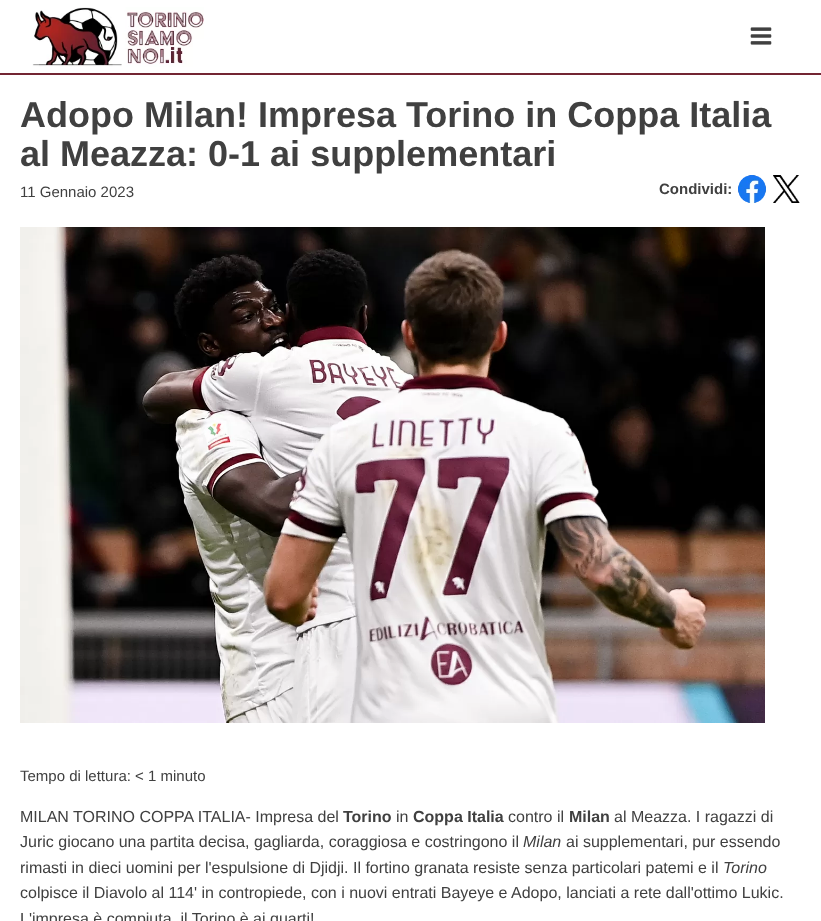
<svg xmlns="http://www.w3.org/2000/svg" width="821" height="921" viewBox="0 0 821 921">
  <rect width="100%" height="100%" fill="rgb(255,255,255)"/>
  <rect x="0" y="73" width="821" height="2" fill="rgb(115,37,50)"/>
  <image x="32" y="7" width="172" height="60" href="pic1.png"/>
  <image x="750" y="27" width="22" height="18" href="pic2.png"/>
  <g font-family="Liberation Sans" font-size="36" font-weight="bold" fill="rgb(64,64,64)">
    <text>
      <tspan x="20" y="127">Adopo Milan! Impresa Torino in Coppa Italia</tspan>
      <tspan x="20" y="166">al Meazza: 0-1 ai supplementari</tspan>
    </text>
  </g>
  <text x="20" y="197" font-family="Liberation Sans" font-size="15" fill="rgb(64,64,64)">11 Gennaio 2023</text>
  <text x="659" y="194" font-family="Liberation Sans" font-size="15" font-weight="bold" fill="rgb(64,64,64)">Condividi:</text>
  <image x="738" y="175" width="28" height="28" href="pic3.png"/>
  <image x="773" y="175" width="27" height="28" href="pic4.png"/>
  <image x="20" y="227" width="745" height="496" href="pic5.png"/>
  <text x="20" y="781" font-family="Liberation Sans" font-size="15" fill="rgb(64,64,64)">Tempo di lettura: &lt; 1 minuto</text>
  <text x="20" y="822" font-family="Liberation Sans" font-size="16" fill="rgb(64,64,64)">MILAN TORINO COPPA ITALIA- Impresa del</text>
  <text x="343" y="822" font-family="Liberation Sans" font-size="16" font-weight="bold" fill="rgb(64,64,64)">Torino</text>
  <text x="396" y="822" font-family="Liberation Sans" font-size="16" fill="rgb(64,64,64)">in</text>
  <text x="413" y="822" font-family="Liberation Sans" font-size="16" font-weight="bold" fill="rgb(64,64,64)">Coppa Italia</text>
  <text x="508" y="822" font-family="Liberation Sans" font-size="16" fill="rgb(64,64,64)">contro il</text>
  <text x="569" y="822" font-family="Liberation Sans" font-size="16" font-weight="bold" fill="rgb(64,64,64)">Milan</text>
  <g font-family="Liberation Sans" font-size="16" fill="rgb(64,64,64)">
    <text x="614" y="822">al Meazza. I ragazzi di</text>
    <text x="20" y="847">Juric giocano una partita decisa, gagliarda, coraggiosa e costringono il</text>
  </g>
  <text x="523" y="847" font-family="Liberation Sans" font-size="16" font-style="italic" fill="rgb(64,64,64)">Milan</text>
  <g font-family="Liberation Sans" font-size="16" fill="rgb(64,64,64)">
    <text x="566" y="847">ai supplementari, pur essendo</text>
    <text x="20" y="873">rimasti in dieci uomini per l'espulsione di Djidji. Il fortino granata resiste senza particolari patemi e il</text>
  </g>
  <text x="723" y="873" font-family="Liberation Sans" font-size="16" font-style="italic" fill="rgb(64,64,64)">Torino</text>
  <g font-family="Liberation Sans" font-size="16" fill="rgb(64,64,64)">
    <text>
      <tspan x="20" y="898">colpisce il Diavolo al 114' in contropiede, con i nuovi entrati Bayeye e Adopo, lanciati a rete dall'ottimo Lukic.</tspan>
      <tspan x="20" y="924">L'impresa è compiuta, il Torino è ai quarti!</tspan>
    </text>
  </g>
</svg>
